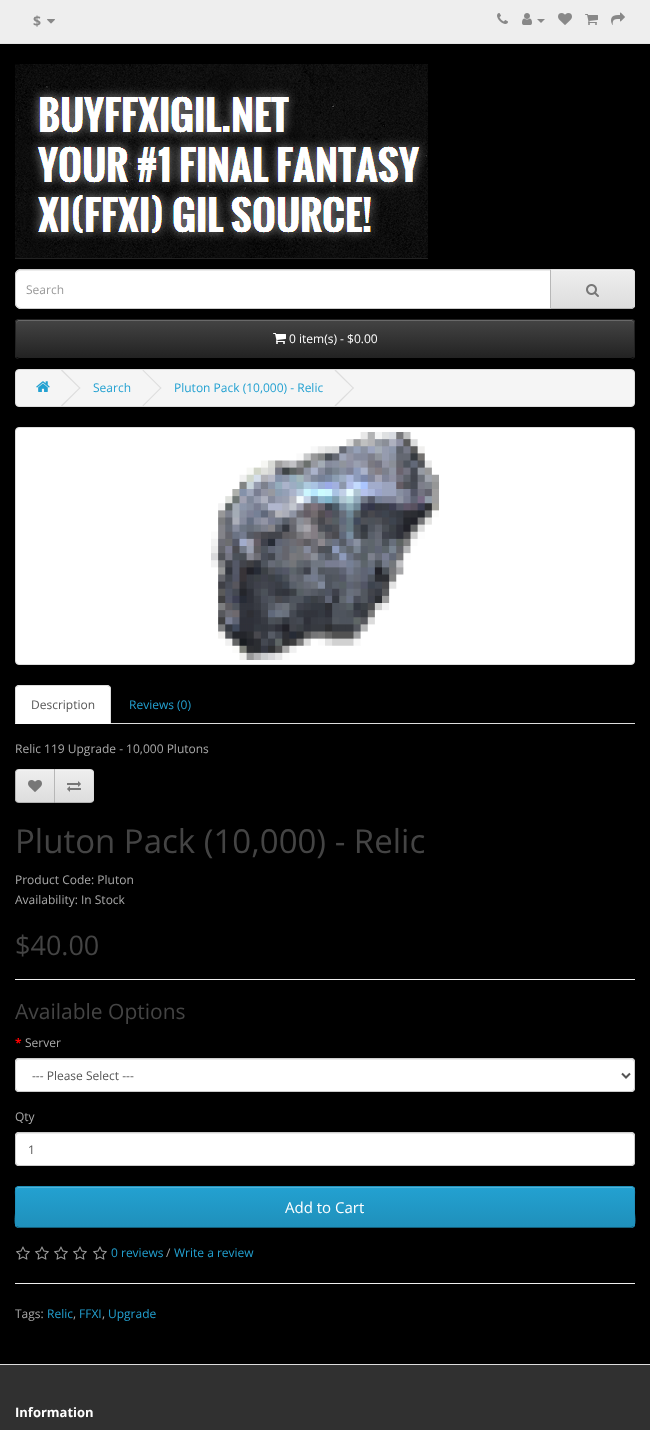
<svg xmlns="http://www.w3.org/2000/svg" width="650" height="1430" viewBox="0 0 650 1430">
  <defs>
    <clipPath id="clip1"><path d="M550 269H631C633 269 635 271 635 273V305C635 307 633 309 631 309H550Z"/></clipPath>
    <linearGradient id="g1" gradientUnits="userSpaceOnUse" x1="593" y1="270" x2="593" y2="308"><stop offset="0" stop-color="rgb(238,238,238)"/><stop offset="1" stop-color="rgb(221,221,221)"/></linearGradient>
    <clipPath id="clip2"><rect x="15" y="319" width="620" height="40" rx="4"/></clipPath>
    <linearGradient id="g2" gradientUnits="userSpaceOnUse" x1="325" y1="320" x2="325" y2="358"><stop offset="0" stop-color="rgb(68,68,68)"/><stop offset="1" stop-color="rgb(34,34,34)"/></linearGradient>
    <clipPath id="clip3"><path d="M19 769H55V803H19C17 803 15 801 15 799V773C15 771 17 769 19 769Z"/></clipPath>
    <linearGradient id="g3" gradientUnits="userSpaceOnUse" x1="35" y1="770" x2="35" y2="802"><stop offset="0" stop-color="rgb(238,238,238)"/><stop offset="1" stop-color="rgb(221,221,221)"/></linearGradient>
    <clipPath id="clip4"><path d="M54 769H90C92 769 94 771 94 773V799C94 801 92 803 90 803H54Z"/></clipPath>
    <linearGradient id="g4" gradientUnits="userSpaceOnUse" x1="74" y1="770" x2="74" y2="802"><stop offset="0" stop-color="rgb(238,238,238)"/><stop offset="1" stop-color="rgb(221,221,221)"/></linearGradient>
    <clipPath id="clip5"><rect x="15" y="1186" width="620" height="42" rx="4"/></clipPath>
    <linearGradient id="g5" gradientUnits="userSpaceOnUse" x1="325" y1="1187" x2="325" y2="1227"><stop offset="0" stop-color="rgb(35,161,209)"/><stop offset="1" stop-color="rgb(31,144,187)"/></linearGradient>
  </defs>
  <rect width="100%" height="100%" fill="rgb(0,0,0)"/>
  <rect x="0" y="0" width="650" height="43" fill="rgb(238,238,238)"/>
  <rect x="0" y="43" width="650" height="1" fill="rgb(226,226,226)"/>
  <text x="33" y="26" font-family="Open Sans" font-size="14" font-weight="bold" fill="rgb(136,136,136)">$</text>
  <image x="47" y="19" width="8" height="5" href="pic1.png"/>
  <image x="497" y="13" width="11" height="11" href="pic2.png"/>
  <image x="522" y="13" width="10" height="12" href="pic3.png"/>
  <path d="M537 19H545L541 23Z" fill="rgb(136,136,136)"/>
  <image x="558" y="13" width="14" height="12" href="pic4.png"/>
  <image x="585" y="14" width="13" height="11" href="pic5.png"/>
  <image x="611" y="12" width="14" height="13" href="pic6.png"/>
  <image x="15" y="64" width="413" height="195" href="pic7.png"/>
  <path d="M21 269H551V309H21C17.5 309 15 306.5 15 303V275C15 271.5 17.5 269 21 269Z" fill="rgb(255,255,255)"/>
  <path d="M21 271H550V270H21C18 270 16 273 16 276C16 273 18 271 21 271Z" fill="rgb(236,236,236)"/>
  <path d="M21 269.5H550.5V308.5H21C18 308.5 15.5 306 15.5 303V275C15.5 272 18 269.5 21 269.5Z" fill="none" stroke="rgb(204,204,204)"/>
  <text x="26" y="294" font-family="Open Sans" font-size="12" fill="rgb(153,153,153)">Search</text>
  <path d="M550 269H631C633 269 635 271 635 273V305C635 307 633 309 631 309H550Z" fill="rgb(231,231,231)"/>
  <g clip-path="url(#clip1)">
    <rect x="551" y="270" width="84" height="38" fill="url(#g1)"/>
  </g>
  <path d="M551 271H631C633 271 634 272 634 274V273C634 271 633 270 631 270H551Z" fill="rgb(241,241,241)"/>
  <path d="M550 269L551 270H632L633 271L634 270L631 269Z" fill="rgb(221,221,221)"/>
  <path d="M635 305V273C635 272 634.5 271 634 270L633 271C634 271 634 272 634 273V305C634 306 634 307 633 307L634 308C634.5 307 635 306 635 305Z" fill="rgb(221,221,221)"/>
  <path d="M631 309L634 308L633 307L632 308H551L550 309Z" fill="rgb(179,179,179)"/>
  <path d="M550 269V309L551 308V270Z" fill="rgb(183,183,183)"/>
  <image x="586" y="284" width="13" height="13" href="pic8.png"/>
  <rect x="15" y="319" width="620" height="40" rx="4" fill="rgb(54,54,54)"/>
  <g clip-path="url(#clip2)">
    <rect x="15" y="320" width="620" height="38" fill="url(#g2)"/>
  </g>
  <path d="M19 321H631C633 321 634 322 634 324V323C634 321 633 320 631 320H19C17 320 16 321 16 323V324C16 322 17 321 19 321Z" fill="rgb(105,105,105)"/>
  <path d="M633.5 357.5L631 358.5H19L16.5 357.5" fill="none" stroke="rgb(0,0,0)"/>
  <path d="M16.5 357.5L15.5 355.5V322C16 321 17 320 18.5 319.5H631.5C633 320 634 321 634.5 322V355.5L633.5 357.5" fill="none" stroke="rgb(34,34,34)"/>
  <image x="273" y="333" width="13" height="11" href="pic9.png"/>
  <text x="289" y="343" font-family="Open Sans" font-size="12" fill="rgb(255,255,255)">0 item(s) - $0.00</text>
  <rect x="15.5" y="369.5" width="619" height="37" rx="3.5" fill="rgb(245,245,245)" stroke="rgb(221,221,221)"/>
  <image x="36" y="381" width="14" height="11" href="pic10.png"/>
  <path d="M61 370.5L62 369.5L80.5 388L79.5 388.5Z" fill="rgb(221,221,221)"/>
  <path d="M61 405.5L79.5 387.5L80.5 388L62 406.5Z" fill="rgb(221,221,221)"/>
  <text x="93" y="392" font-family="Open Sans" font-size="12" fill="rgb(35,161,209)">Search</text>
  <path d="M142.5 370.5L143 369.5L161.5 388L160.5 388.5Z" fill="rgb(221,221,221)"/>
  <path d="M142.5 405.5L160.5 387.5L161.5 388L143 406.5Z" fill="rgb(221,221,221)"/>
  <text x="174" y="392" font-family="Open Sans" font-size="12" fill="rgb(35,161,209)">Pluton Pack (10,000) - Relic</text>
  <path d="M334.5 370.5L335.5 369.5L354 388L353 388.5Z" fill="rgb(221,221,221)"/>
  <path d="M334.5 405.5L353 387.5L354 388L335.5 406.5Z" fill="rgb(221,221,221)"/>
  <rect x="15.5" y="427.5" width="619" height="237" rx="3.5" fill="rgb(255,255,255)" stroke="rgb(221,221,221)"/>
  <image x="211" y="432" width="228" height="228" href="pic11.png"/>
  <rect x="111" y="723" width="524" height="1" fill="rgb(221,221,221)"/>
  <path d="M19 685H107C109 685 111 687 111 689V724H15V689C15 687 17 685 19 685Z" fill="rgb(255,255,255)"/>
  <path d="M19 685L16 686L17 687L19 686H107L109 687L110 686L107 685Z" fill="rgb(221,221,221)"/>
  <path d="M111 724V689C111 688 110.5 687 110 686L109 687C110 687 110 688 110 689V723Z" fill="rgb(221,221,221)"/>
  <path d="M15 724L16 723V689C16 688 16 687 17 687L16 686C15.5 687 15 688 15 689Z" fill="rgb(221,221,221)"/>
  <text x="31" y="709" font-family="Open Sans" font-size="12" fill="rgb(85,85,85)">Description</text>
  <text x="129" y="709" font-family="Open Sans" font-size="12" fill="rgb(35,161,209)">Reviews (0)</text>
  <text x="15" y="753" font-family="Open Sans" font-size="12" fill="rgb(169,169,169)">Relic 119 Upgrade - 10,000 Plutons</text>
  <g clip-path="url(#clip3)">
    <rect x="15" y="770" width="39" height="32" fill="url(#g3)"/>
  </g>
  <path d="M19 771H54V770H19C17.5 770 16 771.5 16 773V774C16 772 17 771 19 771Z" fill="rgb(241,241,241)"/>
  <path d="M19 769C18 769 17 769.5 16 770L17 771C17 770 18 770 19 770H54L55 769Z" fill="rgb(221,221,221)"/>
  <path d="M55 803L54 802H19C18 802 17 802 17 801L16 802C17 802.5 18 803 19 803Z" fill="rgb(179,179,179)"/>
  <path d="M15 773V799C15 800 15.5 801 16 802L17 801C16 801 16 800 16 799V773C16 772 16 771 17 771L16 770C15.5 771 15 772 15 773Z" fill="rgb(183,183,183)"/>
  <image x="28" y="780" width="14" height="12" href="pic12.png"/>
  <g clip-path="url(#clip4)">
    <rect x="55" y="770" width="39" height="32" fill="url(#g4)"/>
  </g>
  <path d="M55 771H90C92 771 93 772 93 774V773C93 771.5 91.5 770 90 770H55Z" fill="rgb(241,241,241)"/>
  <path d="M54 769L55 770H90C91 770 92 770 92 771L93 770C92 769.5 91 769 90 769Z" fill="rgb(221,221,221)"/>
  <path d="M94 799V773C94 772 93.5 771 93 770L92 771C93 771 93 772 93 773V799C93 800 93 801 92 801L93 802C93.5 801 94 800 94 799Z" fill="rgb(221,221,221)"/>
  <path d="M90 803C91 803 92 802.5 93 802L92 801C92 802 91 802 90 802H55L54 803Z" fill="rgb(179,179,179)"/>
  <path d="M54 769V803L55 802V770Z" fill="rgb(183,183,183)"/>
  <image x="67" y="781" width="14" height="11" href="pic13.png"/>
  <text x="15" y="853" font-family="Open Sans" font-size="33" fill="rgb(68,68,68)">Pluton Pack (10,000) - Relic</text>
  <g font-family="Open Sans" font-size="12" fill="rgb(169,169,169)">
    <text>
      <tspan x="15" y="884">Product Code: Pluton</tspan>
      <tspan x="15" y="904">Availability: In Stock</tspan>
    </text>
  </g>
  <text x="15" y="955" font-family="Open Sans" font-size="27" fill="rgb(68,68,68)">$40.00</text>
  <rect x="15" y="979" width="620" height="1" fill="rgb(238,238,238)"/>
  <text x="15" y="1019" font-family="Open Sans" font-size="21" fill="rgb(68,68,68)">Available Options</text>
  <text x="15" y="1047" font-family="Open Sans" font-size="12" font-weight="bold" fill="rgb(255,0,0)">*</text>
  <text x="25" y="1047" font-family="Open Sans" font-size="12" fill="rgb(169,169,169)">Server</text>
  <rect x="15" y="1058" width="620" height="34" rx="4" fill="rgb(255,255,255)"/>
  <path d="M19 1060H631C633 1060 634 1061 634 1063V1062C634 1060 633 1059 631 1059H19C17 1059 16 1060 16 1062V1063C16 1061 17 1060 19 1060Z" fill="rgb(236,236,236)"/>
  <rect x="15.5" y="1058.5" width="619" height="33" rx="3.5" fill="none" stroke="rgb(204,204,204)"/>
  <path d="M622 1073.5L626 1077.5L630 1073.5" fill="none" stroke="rgb(85,85,85)" stroke-width="2"/>
  <text x="32" y="1080" font-family="Open Sans" font-size="12" fill="rgb(85,85,85)">--- Please Select ---</text>
  <text x="15" y="1121" font-family="Open Sans" font-size="12" fill="rgb(169,169,169)">Qty</text>
  <rect x="15" y="1132" width="620" height="34" rx="4" fill="rgb(255,255,255)"/>
  <path d="M19 1134H631C633 1134 634 1135 634 1137V1136C634 1134 633 1133 631 1133H19C17 1133 16 1134 16 1136V1137C16 1135 17 1134 19 1134Z" fill="rgb(236,236,236)"/>
  <rect x="15.5" y="1132.5" width="619" height="33" rx="3.5" fill="none" stroke="rgb(204,204,204)"/>
  <text x="28" y="1154" font-family="Open Sans" font-size="12" fill="rgb(85,85,85)">1</text>
  <rect x="15" y="1186" width="620" height="42" rx="4" fill="rgb(34,154,200)"/>
  <g clip-path="url(#clip5)">
    <rect x="15" y="1187" width="620" height="40" fill="url(#g5)"/>
  </g>
  <path d="M19 1188H631C633 1188 634 1189 634 1191V1190C634 1188 633 1187 631 1187H19C17 1187 16 1188 16 1190V1191C16 1189 17 1188 19 1188Z" fill="rgb(79,180,218)"/>
  <path d="M633.5 1226.5L631 1227.5H19L16.5 1226.5" fill="none" stroke="rgb(20,94,122)"/>
  <path d="M16.5 1226.5C14 1224 15.5 1215.5 15.5 1212.5V1195.5C15.5 1193 14.5 1187 18.5 1186.5H631.5C635.5 1187 634.5 1193 634.5 1195.5V1212.5C634.5 1215.5 636 1224 633.5 1226.5" fill="none" stroke="rgb(31,144,187)"/>
  <text x="285" y="1213" font-family="Open Sans" font-size="15" fill="rgb(255,255,255)">Add to Cart</text>
  <image x="16" y="1246" width="14" height="14" href="pic14.png"/>
  <image x="35" y="1246" width="14" height="14" href="pic14.png"/>
  <image x="54" y="1246" width="14" height="14" href="pic14.png"/>
  <image x="73" y="1246" width="14" height="14" href="pic14.png"/>
  <image x="93" y="1246" width="14" height="14" href="pic14.png"/>
  <text x="111" y="1257" font-family="Open Sans" font-size="12" fill="rgb(35,161,209)">0 reviews</text>
  <text x="166" y="1257" font-family="Open Sans" font-size="12" fill="rgb(169,169,169)">/</text>
  <text x="174" y="1257" font-family="Open Sans" font-size="12" fill="rgb(35,161,209)">Write a review</text>
  <rect x="15" y="1283" width="620" height="1" fill="rgb(238,238,238)"/>
  <text x="15" y="1318" font-family="Open Sans" font-size="12" fill="rgb(169,169,169)">Tags:</text>
  <text x="47" y="1318" font-family="Open Sans" font-size="12" fill="rgb(35,161,209)">Relic</text>
  <text x="73" y="1318" font-family="Open Sans" font-size="12" fill="rgb(169,169,169)">,</text>
  <text x="79" y="1318" font-family="Open Sans" font-size="12" fill="rgb(35,161,209)">FFXI</text>
  <text x="102" y="1318" font-family="Open Sans" font-size="12" fill="rgb(169,169,169)">,</text>
  <text x="108" y="1318" font-family="Open Sans" font-size="12" fill="rgb(35,161,209)">Upgrade</text>
  <rect x="0" y="1365" width="650" height="65" fill="rgb(48,48,48)"/>
  <rect x="0" y="1364" width="650" height="1" fill="rgb(221,221,221)"/>
  <text x="15" y="1417" font-family="Open Sans" font-size="13" font-weight="bold" fill="rgb(255,255,255)">Information</text>
</svg>
